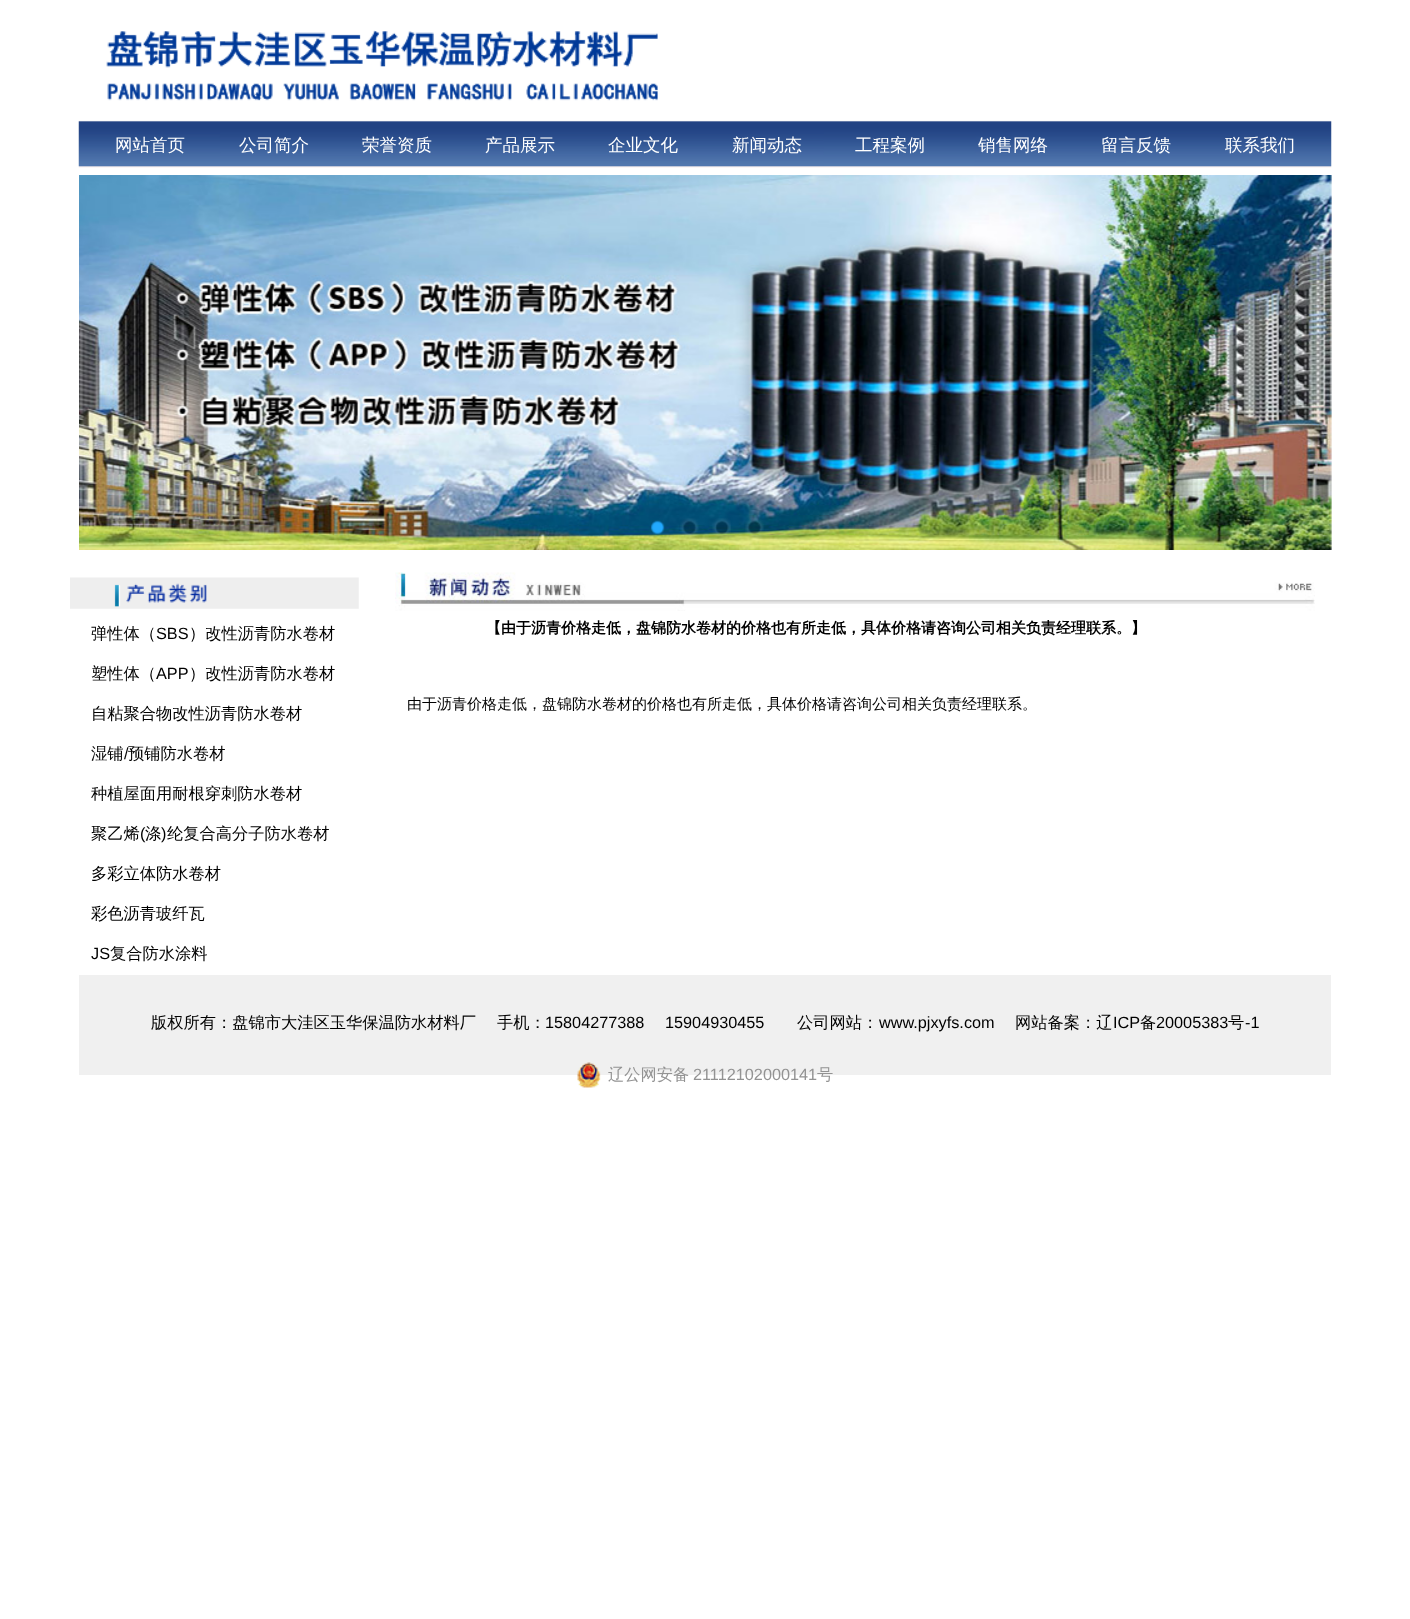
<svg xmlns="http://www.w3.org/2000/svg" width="1410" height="1619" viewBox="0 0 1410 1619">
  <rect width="100%" height="100%" fill="rgb(255,255,255)"/>
  <image x="106" y="30" width="552" height="71" href="pic1.png"/>
  <image x="78" y="120" width="1254" height="48" href="pic2.png"/>
  <g font-family="WenQuanYi Zen Hei" font-size="17.5" font-weight="500" fill="rgb(255,255,255)">
    <text x="115" y="151">网站首页</text>
    <text x="239" y="151">公司简介</text>
    <text x="362" y="151">荣誉资质</text>
    <text x="485" y="151">产品展示</text>
    <text x="608" y="151">企业文化</text>
    <text x="732" y="151">新闻动态</text>
    <text x="855" y="151">工程案例</text>
    <text x="978" y="151">销售网络</text>
    <text x="1101" y="151">留言反馈</text>
    <text x="1225" y="151">联系我们</text>
  </g>
  <image x="79" y="175" width="1253" height="375" href="pic3.png"/>
  <image x="650" y="520" width="15" height="15" href="pic4.png"/>
  <image x="680" y="518" width="19" height="19" href="pic5.png"/>
  <image x="712" y="518" width="19" height="19" href="pic6.png"/>
  <image x="745" y="518" width="19" height="19" href="pic7.png"/>
  <image x="70" y="577" width="289" height="32" href="pic8.png"/>
  <text x="91" y="639" font-family="WenQuanYi Zen Hei" font-size="16.25" font-weight="500" fill="rgb(0,0,0)">弹性体（</text>
  <text x="156" y="639" font-family="Liberation Sans" font-size="16.25" fill="rgb(0,0,0)">SBS</text>
  <g font-family="WenQuanYi Zen Hei" font-size="16.25" font-weight="500" fill="rgb(0,0,0)">
    <text x="189" y="639">）改性沥青防水卷材</text>
    <text x="91" y="679">塑性体（</text>
  </g>
  <text x="156" y="679" font-family="Liberation Sans" font-size="16.25" fill="rgb(0,0,0)">APP</text>
  <g font-family="WenQuanYi Zen Hei" font-size="16.25" font-weight="500" fill="rgb(0,0,0)">
    <text x="189" y="679">）改性沥青防水卷材</text>
    <text x="91" y="719">自粘聚合物改性沥青防水卷材</text>
    <text x="91" y="759">湿铺</text>
  </g>
  <text x="124" y="759" font-family="Liberation Sans" font-size="16.25" fill="rgb(0,0,0)">/</text>
  <g font-family="WenQuanYi Zen Hei" font-size="16.25" font-weight="500" fill="rgb(0,0,0)">
    <text x="128" y="759">预铺防水卷材</text>
    <text x="91" y="799">种植屋面用耐根穿刺防水卷材</text>
    <text x="91" y="839">聚乙烯</text>
  </g>
  <text x="140" y="839" font-family="Liberation Sans" font-size="16.25" fill="rgb(0,0,0)">(</text>
  <text x="145" y="839" font-family="WenQuanYi Zen Hei" font-size="16.25" font-weight="500" fill="rgb(0,0,0)">涤</text>
  <text x="161" y="839" font-family="Liberation Sans" font-size="16.25" fill="rgb(0,0,0)">)</text>
  <g font-family="WenQuanYi Zen Hei" font-size="16.25" font-weight="500" fill="rgb(0,0,0)">
    <text x="167" y="839">纶复合高分子防水卷材</text>
    <text x="91" y="879">多彩立体防水卷材</text>
    <text x="91" y="919">彩色沥青玻纤瓦</text>
  </g>
  <text x="91" y="959" font-family="Liberation Sans" font-size="16.25" fill="rgb(0,0,0)">JS</text>
  <text x="110" y="959" font-family="WenQuanYi Zen Hei" font-size="16.25" font-weight="500" fill="rgb(0,0,0)">复合防水涂料</text>
  <image x="395" y="572" width="920" height="39" href="pic9.png"/>
  <text x="486" y="633" font-family="WenQuanYi Zen Hei" font-size="15" font-weight="bold" fill="rgb(0,0,0)">【由于沥青价格走低，盘锦防水卷材的价格也有所走低，具体价格请咨询公司相关负责经理联系。】</text>
  <text x="407" y="709" font-family="WenQuanYi Zen Hei" font-size="15" font-weight="500" fill="rgb(0,0,0)">由于沥青价格走低，盘锦防水卷材的价格也有所走低，具体价格请咨询公司相关负责经理联系。</text>
  <rect x="79" y="975" width="1252" height="100" fill="rgb(240,240,240)"/>
  <text x="151" y="1028" font-family="WenQuanYi Zen Hei" font-size="16.25" font-weight="500" fill="rgb(0,0,0)">版权所有：盘锦市大洼区玉华保温防水材料厂　 手机：</text>
  <g font-family="Liberation Sans" font-size="16.25" fill="rgb(0,0,0)">
    <text x="545" y="1028">15804277388</text>
    <text x="665" y="1028">15904930455</text>
  </g>
  <text x="797" y="1028" font-family="WenQuanYi Zen Hei" font-size="16.25" font-weight="500" fill="rgb(0,0,0)">公司网站：</text>
  <text x="879" y="1028" font-family="Liberation Sans" font-size="16.25" fill="rgb(0,0,0)">www.pjxyfs.com</text>
  <text x="1015" y="1028" font-family="WenQuanYi Zen Hei" font-size="16.25" font-weight="500" fill="rgb(0,0,0)">网站备案：辽</text>
  <text x="1113" y="1028" font-family="Liberation Sans" font-size="16.25" fill="rgb(0,0,0)">ICP</text>
  <text x="1140" y="1028" font-family="WenQuanYi Zen Hei" font-size="16.25" font-weight="500" fill="rgb(0,0,0)">备</text>
  <text x="1156" y="1028" font-family="Liberation Sans" font-size="16.25" fill="rgb(0,0,0)">20005383</text>
  <text x="1228" y="1028" font-family="WenQuanYi Zen Hei" font-size="16.25" font-weight="500" fill="rgb(0,0,0)">号</text>
  <text x="1245" y="1028" font-family="Liberation Sans" font-size="16.25" fill="rgb(0,0,0)">-1</text>
  <image x="577" y="1062" width="24" height="26" href="pic10.png"/>
  <text x="608" y="1080" font-family="WenQuanYi Zen Hei" font-size="16.25" font-weight="500" fill="rgb(147,147,147)">辽公网安备</text>
  <text x="693" y="1080" font-family="Liberation Sans" font-size="16.25" fill="rgb(147,147,147)">21112102000141</text>
  <text x="817" y="1080" font-family="WenQuanYi Zen Hei" font-size="16.25" font-weight="500" fill="rgb(147,147,147)">号</text>
</svg>
